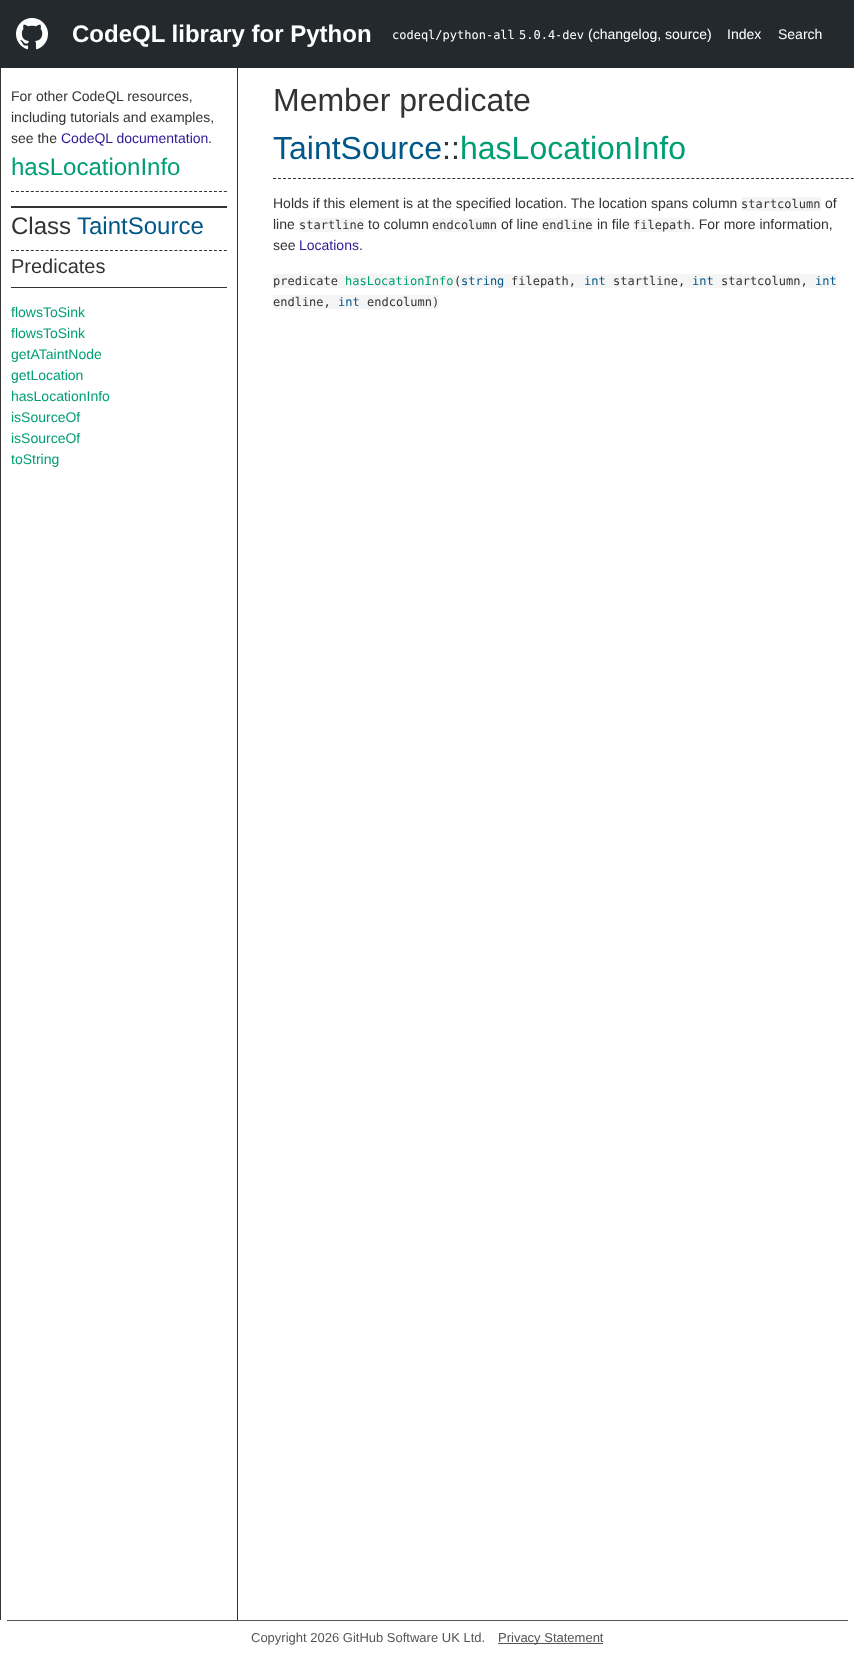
<svg xmlns="http://www.w3.org/2000/svg" width="854" height="1660" viewBox="0 0 854 1660">
  <rect width="100%" height="100%" fill="rgb(255,255,255)"/>
  <rect x="0" y="0" width="854" height="68" fill="rgb(36,41,46)"/>
  <image x="16" y="18" width="32" height="32" href="pic1.png"/>
  <text x="72" y="42" font-family="Liberation Sans" font-size="24" font-weight="bold" fill="rgb(255,255,255)">CodeQL library for Python</text>
  <g font-family="DejaVu Sans Mono" font-size="12" fill="rgb(255,255,255)">
    <text x="392" y="39">codeql/python-all</text>
    <text x="519" y="39">5.0.4-dev</text>
  </g>
  <g font-family="Liberation Sans" font-size="14" fill="rgb(255,255,255)">
    <text x="588" y="39">(changelog, source)</text>
    <text x="727" y="39">Index</text>
    <text x="778" y="39">Search</text>
  </g>
  <rect x="237" y="68" width="1" height="1552" fill="rgb(51,51,51)"/>
  <rect x="0" y="68" width="1" height="1552" fill="rgb(51,51,51)"/>
  <rect x="11" y="206" width="216" height="2" fill="rgb(51,51,51)"/>
  <g font-family="Liberation Sans" font-size="14" fill="rgb(51,51,51)">
    <text>
      <tspan x="11" y="101">For other CodeQL resources,</tspan>
      <tspan x="11" y="122">including tutorials and examples,</tspan>
      <tspan x="11" y="143">see the</tspan>
    </text>
  </g>
  <text x="61" y="143" font-family="Liberation Sans" font-size="14" fill="rgb(47,22,149)">CodeQL documentation</text>
  <text x="208" y="143" font-family="Liberation Sans" font-size="14" fill="rgb(51,51,51)">.</text>
  <path d="M11 191.5H227" fill="none" stroke="rgb(51,51,51)" stroke-dasharray="3 1.95"/>
  <text x="11" y="175" font-family="Liberation Sans" font-size="24" fill="rgb(0,158,115)">hasLocationInfo</text>
  <path d="M11 250.5H227" fill="none" stroke="rgb(51,51,51)" stroke-dasharray="3 1.95"/>
  <text x="11" y="234" font-family="Liberation Sans" font-size="24" fill="rgb(51,51,51)">Class</text>
  <text x="77" y="234" font-family="Liberation Sans" font-size="24" fill="rgb(0,87,136)">TaintSource</text>
  <rect x="11" y="287" width="216" height="1" fill="rgb(51,51,51)"/>
  <text x="11" y="273" font-family="Liberation Sans" font-size="20" fill="rgb(51,51,51)">Predicates</text>
  <g font-family="Liberation Sans" font-size="14" fill="rgb(0,158,115)">
    <text>
      <tspan x="11" y="317">flowsToSink</tspan>
      <tspan x="11" y="338">flowsToSink</tspan>
      <tspan x="11" y="359">getATaintNode</tspan>
      <tspan x="11" y="380">getLocation</tspan>
      <tspan x="11" y="401">hasLocationInfo</tspan>
      <tspan x="11" y="422">isSourceOf</tspan>
      <tspan x="11" y="443">isSourceOf</tspan>
      <tspan x="11" y="464">toString</tspan>
    </text>
  </g>
  <path d="M273 178.5H854" fill="none" stroke="rgb(51,51,51)" stroke-dasharray="3 1.98"/>
  <text x="273" y="111" font-family="Liberation Sans" font-size="32" fill="rgb(51,51,51)">Member predicate</text>
  <text x="273" y="159" font-family="Liberation Sans" font-size="32" fill="rgb(0,87,136)">TaintSource</text>
  <text x="442" y="159" font-family="Liberation Sans" font-size="32" fill="rgb(51,51,51)">::</text>
  <text x="460" y="159" font-family="Liberation Sans" font-size="32" fill="rgb(0,158,115)">hasLocationInfo</text>
  <text x="273" y="208" font-family="Liberation Sans" font-size="14" fill="rgb(51,51,51)">Holds if this element is at the specified location. The location spans column</text>
  <rect x="741" y="197" width="80" height="14" fill="rgb(245,245,245)"/>
  <text x="741" y="208" font-family="DejaVu Sans Mono" font-size="12" fill="rgb(51,51,51)">startcolumn</text>
  <g font-family="Liberation Sans" font-size="14" fill="rgb(51,51,51)">
    <text x="825" y="208">of</text>
    <text x="273" y="229">line</text>
  </g>
  <rect x="299" y="218" width="65" height="14" fill="rgb(245,245,245)"/>
  <text x="299" y="229" font-family="DejaVu Sans Mono" font-size="12" fill="rgb(51,51,51)">startline</text>
  <text x="368" y="229" font-family="Liberation Sans" font-size="14" fill="rgb(51,51,51)">to column</text>
  <rect x="432" y="218" width="65" height="14" fill="rgb(245,245,245)"/>
  <text x="432" y="229" font-family="DejaVu Sans Mono" font-size="12" fill="rgb(51,51,51)">endcolumn</text>
  <text x="501" y="229" font-family="Liberation Sans" font-size="14" fill="rgb(51,51,51)">of line</text>
  <rect x="542" y="218" width="51" height="14" fill="rgb(245,245,245)"/>
  <text x="542" y="229" font-family="DejaVu Sans Mono" font-size="12" fill="rgb(51,51,51)">endline</text>
  <text x="597" y="229" font-family="Liberation Sans" font-size="14" fill="rgb(51,51,51)">in file</text>
  <rect x="633" y="218" width="58" height="14" fill="rgb(245,245,245)"/>
  <text x="633" y="229" font-family="DejaVu Sans Mono" font-size="12" fill="rgb(51,51,51)">filepath</text>
  <g font-family="Liberation Sans" font-size="14" fill="rgb(51,51,51)">
    <text x="691" y="229">. For more information,</text>
    <text x="273" y="250">see</text>
  </g>
  <text x="299" y="250" font-family="Liberation Sans" font-size="14" fill="rgb(47,22,149)">Locations</text>
  <text x="359" y="250" font-family="Liberation Sans" font-size="14" fill="rgb(51,51,51)">.</text>
  <rect x="273" y="274" width="564" height="14" fill="rgb(245,245,245)"/>
  <text x="273" y="285" font-family="DejaVu Sans Mono" font-size="12" fill="rgb(51,51,51)">predicate</text>
  <text x="345" y="285" font-family="DejaVu Sans Mono" font-size="12" fill="rgb(0,158,115)">hasLocationInfo</text>
  <text x="454" y="285" font-family="DejaVu Sans Mono" font-size="12" fill="rgb(51,51,51)">(</text>
  <text x="461" y="285" font-family="DejaVu Sans Mono" font-size="12" fill="rgb(0,87,136)">string</text>
  <text x="511" y="285" font-family="DejaVu Sans Mono" font-size="12" fill="rgb(51,51,51)">filepath,</text>
  <text x="584" y="285" font-family="DejaVu Sans Mono" font-size="12" fill="rgb(0,87,136)">int</text>
  <text x="613" y="285" font-family="DejaVu Sans Mono" font-size="12" fill="rgb(51,51,51)">startline,</text>
  <text x="692" y="285" font-family="DejaVu Sans Mono" font-size="12" fill="rgb(0,87,136)">int</text>
  <text x="721" y="285" font-family="DejaVu Sans Mono" font-size="12" fill="rgb(51,51,51)">startcolumn,</text>
  <text x="815" y="285" font-family="DejaVu Sans Mono" font-size="12" fill="rgb(0,87,136)">int</text>
  <rect x="273" y="295" width="166" height="14" fill="rgb(245,245,245)"/>
  <text x="273" y="306" font-family="DejaVu Sans Mono" font-size="12" fill="rgb(51,51,51)">endline,</text>
  <text x="338" y="306" font-family="DejaVu Sans Mono" font-size="12" fill="rgb(0,87,136)">int</text>
  <text x="367" y="306" font-family="DejaVu Sans Mono" font-size="12" fill="rgb(51,51,51)">endcolumn)</text>
  <rect x="7" y="1620" width="841" height="1" fill="rgb(85,85,85)"/>
  <text x="251" y="1642" font-family="Liberation Sans" font-size="13" fill="rgb(85,85,85)">Copyright 2026 GitHub Software UK Ltd.</text>
  <rect x="498" y="1643" width="105" height="1" fill="rgb(85,85,85)"/>
  <text x="498" y="1642" font-family="Liberation Sans" font-size="13" fill="rgb(85,85,85)">Privacy Statement</text>
</svg>
